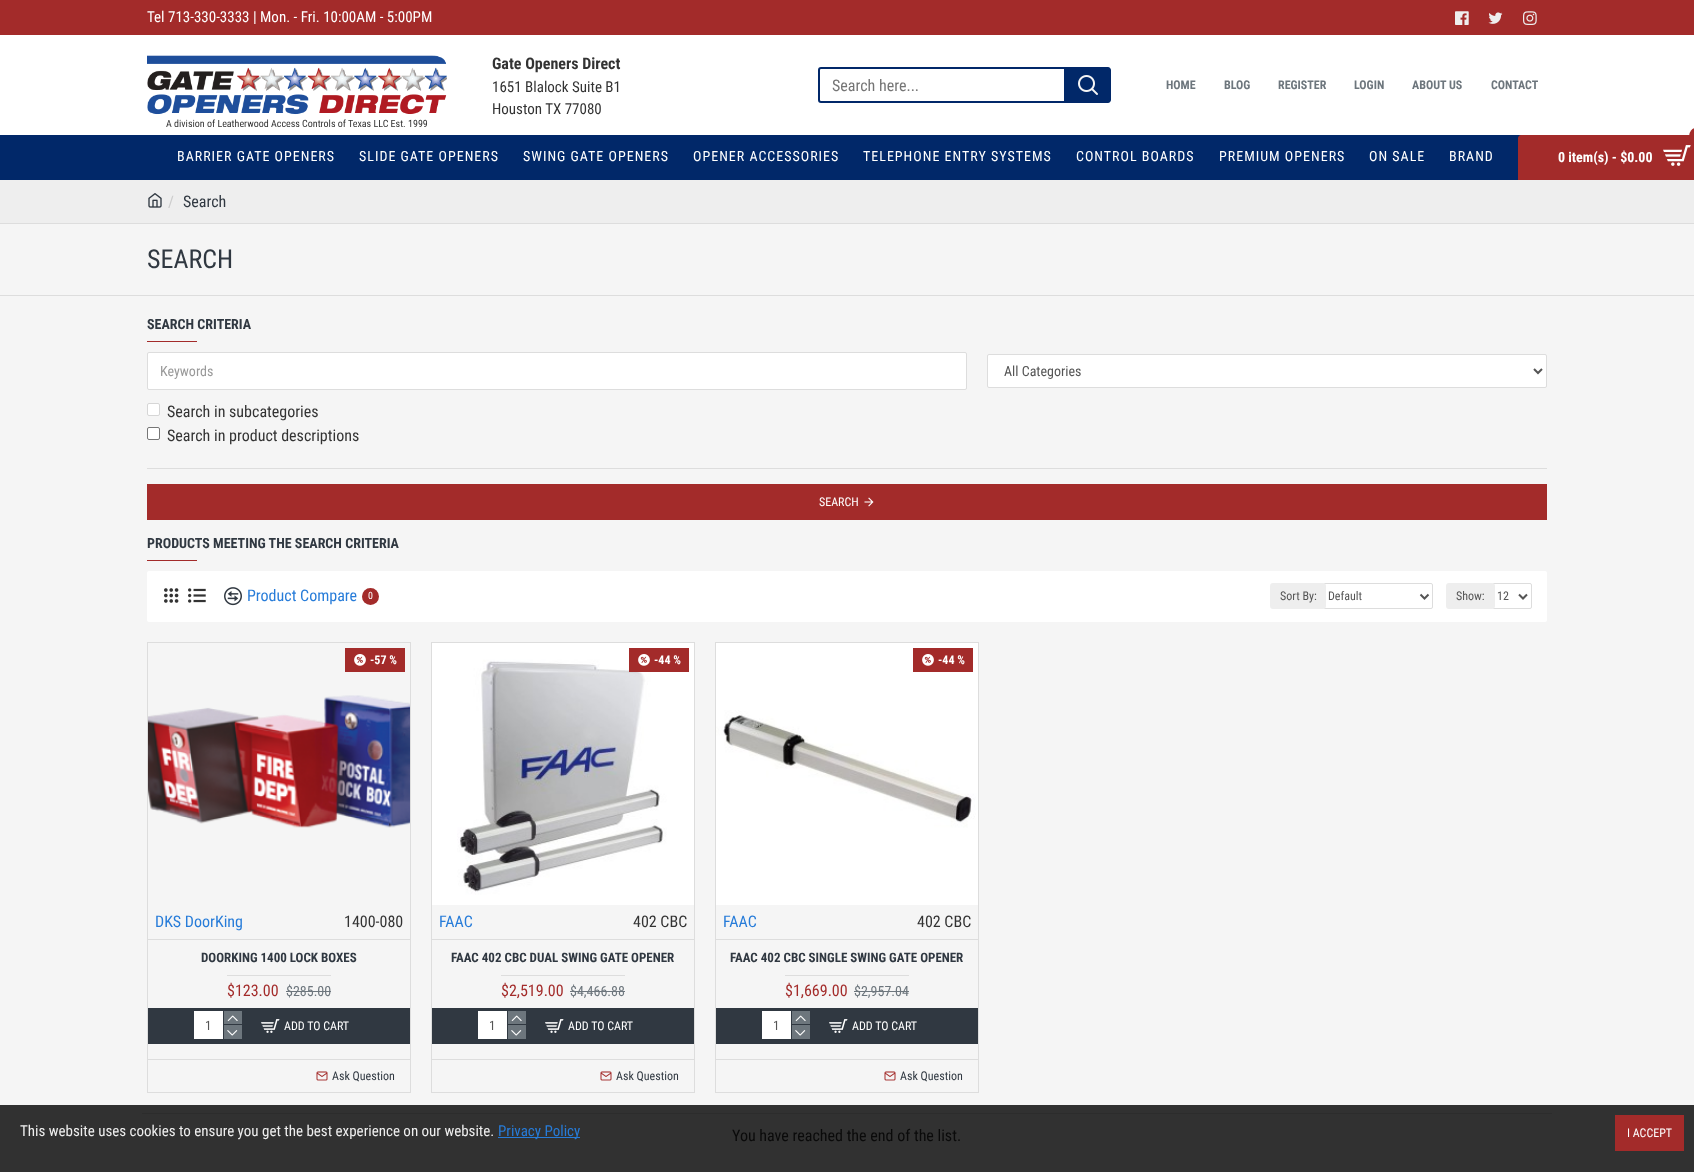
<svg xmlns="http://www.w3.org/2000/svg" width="1694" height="1172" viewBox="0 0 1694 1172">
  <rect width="100%" height="100%" fill="rgb(245,245,245)"/>
  <rect x="0" y="1105" width="1694" height="67" fill="rgb(49,49,49)"/>
  <rect x="0" y="35" width="1694" height="100" fill="rgb(255,255,255)"/>
  <rect x="0" y="0" width="1694" height="35" fill="rgb(163,43,42)"/>
  <text x="147" y="22" font-family="Roboto Condensed" font-size="15" fill="rgb(255,255,255)">Tel 713-330-3333 | Mon. - Fri. 10:00AM - 5:00PM</text>
  <image x="1455" y="11" width="14" height="14" href="pic1.png"/>
  <image x="1488" y="12" width="15" height="12" href="pic2.png"/>
  <image x="1523" y="11" width="14" height="14" href="pic3.png"/>
  <text x="492" y="69" font-family="Roboto Condensed" font-size="16" font-weight="bold" fill="rgb(51,51,51)">Gate Openers Direct</text>
  <g font-family="Roboto Condensed" font-size="15" fill="rgb(51,51,51)">
    <text>
      <tspan x="492" y="92">1651 Blalock Suite B1</tspan>
      <tspan x="492" y="114">Houston TX 77080</tspan>
    </text>
  </g>
  <path d="M821 68H1065V102H821C820 102 819 101 819 100V70C819 69 820 68 821 68Z" fill="none" stroke="rgb(1,40,105)" stroke-width="2"/>
  <text x="832" y="91" font-family="Roboto Condensed" font-size="16" fill="rgb(117,117,117)">Search here...</text>
  <path d="M1066 67H1108C1109.5 67 1111 68.5 1111 70V100C1111 101.5 1109.5 103 1108 103H1066Z" fill="rgb(1,40,105)"/>
  <image x="1078" y="75" width="20" height="20" href="pic4.png"/>
  <g font-family="Roboto Condensed" font-size="12" font-weight="bold" fill="rgb(109,118,125)">
    <text x="1166" y="89">HOME</text>
    <text x="1224" y="89">BLOG</text>
    <text x="1278" y="89">REGISTER</text>
    <text x="1354" y="89">LOGIN</text>
    <text x="1412" y="89">ABOUT US</text>
    <text x="1491" y="89">CONTACT</text>
  </g>
  <image x="147" y="55" width="300" height="60" href="pic5.png"/>
  <text x="166" y="127" font-family="Roboto Condensed" font-size="10" fill="rgb(51,51,51)">A division of Leatherwood Access Controls of Texas LLC Est. 1999</text>
  <rect x="0" y="135" width="1521" height="45" fill="rgb(1,40,105)"/>
  <g font-family="Roboto Condensed" font-size="14" letter-spacing="1" fill="rgb(255,255,255)">
    <text x="177" y="161">BARRIER GATE OPENERS</text>
    <text x="359" y="161">SLIDE GATE OPENERS</text>
    <text x="523" y="161">SWING GATE OPENERS</text>
    <text x="693" y="161">OPENER ACCESSORIES</text>
    <text x="863" y="161">TELEPHONE ENTRY SYSTEMS</text>
    <text x="1076" y="161">CONTROL BOARDS</text>
    <text x="1219" y="161">PREMIUM OPENERS</text>
    <text x="1369" y="161">ON SALE</text>
    <text x="1449" y="161">BRAND</text>
  </g>
  <path d="M1521 135H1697V180H1518V138C1518 136.5 1519.5 135 1521 135Z" fill="rgb(163,43,42)"/>
  <rect x="1689" y="128" width="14" height="17" rx="8.5" fill="rgb(163,43,42)"/>
  <text x="1558" y="162" font-family="Roboto Condensed" font-size="14" font-weight="bold" fill="rgb(255,255,255)">0 item(s) - $0.00</text>
  <image x="1663" y="145" width="28" height="21" href="pic6.png"/>
  <rect x="0" y="180" width="1694" height="43" fill="rgb(238,238,238)"/>
  <rect x="0" y="223" width="1694" height="1" fill="rgb(221,221,221)"/>
  <image x="148" y="193" width="14" height="15" href="pic7.png"/>
  <text x="168" y="207" font-family="Roboto Condensed" font-size="16" fill="rgb(204,204,204)">/</text>
  <text x="183" y="207" font-family="Roboto Condensed" font-size="16" fill="rgb(48,56,65)">Search</text>
  <rect x="0" y="295" width="1694" height="1" fill="rgb(221,221,221)"/>
  <text x="147" y="268" font-family="Roboto Condensed" font-size="26" fill="rgb(48,56,65)">SEARCH</text>
  <text x="147" y="329" font-family="Roboto Condensed" font-size="14" font-weight="bold" fill="rgb(48,56,65)">SEARCH CRITERIA</text>
  <rect x="147" y="341" width="50" height="1" fill="rgb(163,43,42)"/>
  <rect x="147.5" y="352.5" width="819" height="37" rx="1.5" fill="rgb(255,255,255)" stroke="rgb(221,221,221)"/>
  <text x="160" y="376" font-family="Roboto Condensed" font-size="14" fill="rgb(153,153,153)">Keywords</text>
  <rect x="987.5" y="354.5" width="559" height="33" rx="1.5" fill="rgb(255,255,255)" stroke="rgb(221,221,221)"/>
  <path d="M1534 369L1538 373L1542 369" fill="none" stroke="rgb(85,85,85)" stroke-width="2"/>
  <text x="1004" y="376" font-family="Roboto Condensed" font-size="14" fill="rgb(85,85,85)">All Categories</text>
  <rect x="147.5" y="403.5" width="12" height="12" rx="1.5" fill="rgb(255,255,255)" stroke="rgb(214,214,214)"/>
  <text x="167" y="417" font-family="Roboto Condensed" font-size="16" fill="rgb(51,51,51)">Search in subcategories</text>
  <rect x="147.5" y="427.5" width="12" height="12" rx="1.5" fill="rgb(255,255,255)" stroke="rgb(118,118,118)"/>
  <text x="167" y="441" font-family="Roboto Condensed" font-size="16" fill="rgb(51,51,51)">Search in product descriptions</text>
  <rect x="147" y="468" width="1400" height="1" fill="rgb(221,221,221)"/>
  <rect x="147" y="484" width="1400" height="36" fill="rgb(163,43,42)"/>
  <text x="819" y="506" font-family="Roboto Condensed" font-size="12" fill="rgb(255,255,255)">SEARCH</text>
  <image x="864" y="497" width="10" height="10" href="pic8.png"/>
  <text x="147" y="548" font-family="Roboto Condensed" font-size="14" font-weight="bold" fill="rgb(48,56,65)">PRODUCTS MEETING THE SEARCH CRITERIA</text>
  <rect x="147" y="560" width="50" height="1" fill="rgb(163,43,42)"/>
  <rect x="147" y="571" width="1400" height="51" rx="2" fill="rgb(255,255,255)"/>
  <image x="164" y="588" width="15" height="15" href="pic9.png"/>
  <image x="188" y="588" width="18" height="15" href="pic10.png"/>
  <image x="224" y="587" width="18" height="19" href="pic11.png"/>
  <text x="247" y="601" font-family="Roboto Condensed" font-size="16" fill="rgb(39,124,217)">Product Compare</text>
  <circle cx="370.5" cy="596.5" r="8.5" fill="rgb(163,43,42)"/>
  <text x="368" y="599" font-family="Roboto Condensed" font-size="10" fill="rgb(255,255,255)">0</text>
  <rect x="1323.5" y="583.5" width="109" height="25" rx="1.5" fill="none" stroke="rgb(221,221,221)"/>
  <rect x="1270" y="583" width="56" height="26" rx="3" fill="rgb(238,238,238)"/>
  <text x="1280" y="600" font-family="Roboto Condensed" font-size="12" fill="rgb(85,85,85)">Sort By:</text>
  <path d="M1420.5 594.5L1424.5 598.5L1428.5 594.5" fill="none" stroke="rgb(85,85,85)" stroke-width="2"/>
  <text x="1328" y="600" font-family="Roboto Condensed" font-size="12" fill="rgb(85,85,85)">Default</text>
  <rect x="1492.5" y="583.5" width="39" height="25" rx="1.5" fill="none" stroke="rgb(221,221,221)"/>
  <rect x="1446" y="583" width="49" height="26" rx="3" fill="rgb(238,238,238)"/>
  <text x="1456" y="600" font-family="Roboto Condensed" font-size="12" fill="rgb(85,85,85)">Show:</text>
  <path d="M1519 594.5L1523 598.5L1527 594.5" fill="none" stroke="rgb(85,85,85)" stroke-width="2"/>
  <text x="1497" y="600" font-family="Roboto Condensed" font-size="12" fill="rgb(85,85,85)">12</text>
  <rect x="147.5" y="642.5" width="263" height="450" fill="none" stroke="rgb(221,221,221)"/>
  <rect x="345" y="648" width="60" height="24" fill="rgb(163,43,42)"/>
  <image x="354" y="654" width="12" height="12" href="pic12.png"/>
  <text x="370" y="664" font-family="Roboto Condensed" font-size="12" font-weight="bold" fill="rgb(255,255,255)">-57 %</text>
  <image x="148" y="695" width="262" height="133" href="pic13.png"/>
  <rect x="148" y="939" width="262" height="1" fill="rgb(221,221,221)"/>
  <text x="155" y="927" font-family="Roboto Condensed" font-size="16" fill="rgb(39,124,217)">DKS DoorKing</text>
  <text x="344" y="927" font-family="Roboto Condensed" font-size="16" fill="rgb(51,51,51)">1400-080</text>
  <text x="201" y="962" font-family="Roboto Condensed" font-size="13" font-weight="bold" fill="rgb(48,56,65)">DOORKING 1400 LOCK BOXES</text>
  <rect x="227" y="975" width="104" height="1" fill="rgb(221,221,221)"/>
  <text x="227" y="996" font-family="Roboto Condensed" font-size="16" fill="rgb(163,43,42)">$123.00</text>
  <text x="286" y="996" font-family="Roboto Condensed" font-size="14" fill="rgb(109,118,125)">$285.00</text>
  <rect x="286" y="991" width="45" height="1" fill="rgb(109,118,125)"/>
  <rect x="148" y="1008" width="262" height="36" fill="rgb(48,56,65)"/>
  <rect x="194" y="1011" width="29" height="28" fill="rgb(255,255,255)"/>
  <text x="205" y="1030" font-family="Roboto Condensed" font-size="13" fill="rgb(85,85,85)">1</text>
  <rect x="224" y="1011" width="18" height="13" fill="rgb(109,118,125)"/>
  <image x="227" y="1015" width="11" height="6" href="pic14.png"/>
  <rect x="224" y="1025" width="18" height="14" fill="rgb(109,118,125)"/>
  <image x="227" y="1030" width="11" height="6" href="pic15.png"/>
  <image x="261" y="1019" width="19" height="14" href="pic16.png"/>
  <text x="284" y="1030" font-family="Roboto Condensed" font-size="12" fill="rgb(255,255,255)">ADD TO CART</text>
  <rect x="148" y="1059" width="262" height="1" fill="rgb(221,221,221)"/>
  <image x="316" y="1071" width="12" height="10" href="pic17.png"/>
  <text x="332" y="1080" font-family="Roboto Condensed" font-size="12" fill="rgb(48,56,65)">Ask Question</text>
  <rect x="431.5" y="642.5" width="263" height="450" fill="none" stroke="rgb(221,221,221)"/>
  <image x="432" y="643" width="262" height="262" href="pic18.png"/>
  <rect x="629" y="648" width="60" height="24" fill="rgb(163,43,42)"/>
  <image x="638" y="654" width="12" height="12" href="pic12.png"/>
  <text x="654" y="664" font-family="Roboto Condensed" font-size="12" font-weight="bold" fill="rgb(255,255,255)">-44 %</text>
  <rect x="432" y="939" width="262" height="1" fill="rgb(221,221,221)"/>
  <text x="439" y="927" font-family="Roboto Condensed" font-size="16" fill="rgb(39,124,217)">FAAC</text>
  <text x="633" y="927" font-family="Roboto Condensed" font-size="16" fill="rgb(51,51,51)">402 CBC</text>
  <text x="451" y="962" font-family="Roboto Condensed" font-size="13" font-weight="bold" fill="rgb(48,56,65)">FAAC 402 CBC DUAL SWING GATE OPENER</text>
  <rect x="501" y="975" width="124" height="1" fill="rgb(221,221,221)"/>
  <text x="501" y="996" font-family="Roboto Condensed" font-size="16" fill="rgb(163,43,42)">$2,519.00</text>
  <text x="570" y="996" font-family="Roboto Condensed" font-size="14" fill="rgb(109,118,125)">$4,466.88</text>
  <rect x="570" y="991" width="55" height="1" fill="rgb(109,118,125)"/>
  <rect x="432" y="1008" width="262" height="36" fill="rgb(48,56,65)"/>
  <rect x="478" y="1011" width="29" height="28" fill="rgb(255,255,255)"/>
  <text x="489" y="1030" font-family="Roboto Condensed" font-size="13" fill="rgb(85,85,85)">1</text>
  <rect x="508" y="1011" width="18" height="13" fill="rgb(109,118,125)"/>
  <image x="511" y="1015" width="11" height="6" href="pic19.png"/>
  <rect x="508" y="1025" width="18" height="14" fill="rgb(109,118,125)"/>
  <image x="511" y="1030" width="11" height="6" href="pic20.png"/>
  <image x="545" y="1019" width="19" height="14" href="pic16.png"/>
  <text x="568" y="1030" font-family="Roboto Condensed" font-size="12" fill="rgb(255,255,255)">ADD TO CART</text>
  <rect x="432" y="1059" width="262" height="1" fill="rgb(221,221,221)"/>
  <image x="600" y="1071" width="12" height="10" href="pic17.png"/>
  <text x="616" y="1080" font-family="Roboto Condensed" font-size="12" fill="rgb(48,56,65)">Ask Question</text>
  <rect x="715.5" y="642.5" width="263" height="450" fill="none" stroke="rgb(221,221,221)"/>
  <image x="716" y="643" width="262" height="262" href="pic21.png"/>
  <rect x="913" y="648" width="60" height="24" fill="rgb(163,43,42)"/>
  <image x="922" y="654" width="12" height="12" href="pic12.png"/>
  <text x="938" y="664" font-family="Roboto Condensed" font-size="12" font-weight="bold" fill="rgb(255,255,255)">-44 %</text>
  <rect x="716" y="939" width="262" height="1" fill="rgb(221,221,221)"/>
  <text x="723" y="927" font-family="Roboto Condensed" font-size="16" fill="rgb(39,124,217)">FAAC</text>
  <text x="917" y="927" font-family="Roboto Condensed" font-size="16" fill="rgb(51,51,51)">402 CBC</text>
  <text x="730" y="962" font-family="Roboto Condensed" font-size="13" font-weight="bold" fill="rgb(48,56,65)">FAAC 402 CBC SINGLE SWING GATE OPENER</text>
  <rect x="785" y="975" width="124" height="1" fill="rgb(221,221,221)"/>
  <text x="785" y="996" font-family="Roboto Condensed" font-size="16" fill="rgb(163,43,42)">$1,669.00</text>
  <text x="854" y="996" font-family="Roboto Condensed" font-size="14" fill="rgb(109,118,125)">$2,957.04</text>
  <rect x="854" y="991" width="55" height="1" fill="rgb(109,118,125)"/>
  <rect x="716" y="1008" width="262" height="36" fill="rgb(48,56,65)"/>
  <rect x="762" y="1011" width="29" height="28" fill="rgb(255,255,255)"/>
  <text x="773" y="1030" font-family="Roboto Condensed" font-size="13" fill="rgb(85,85,85)">1</text>
  <rect x="792" y="1011" width="18" height="13" fill="rgb(109,118,125)"/>
  <image x="795" y="1015" width="11" height="7" href="pic22.png"/>
  <rect x="792" y="1025" width="18" height="14" fill="rgb(109,118,125)"/>
  <image x="795" y="1030" width="11" height="6" href="pic23.png"/>
  <image x="829" y="1019" width="19" height="14" href="pic16.png"/>
  <text x="852" y="1030" font-family="Roboto Condensed" font-size="12" fill="rgb(255,255,255)">ADD TO CART</text>
  <rect x="716" y="1059" width="262" height="1" fill="rgb(221,221,221)"/>
  <image x="884" y="1071" width="12" height="10" href="pic17.png"/>
  <text x="900" y="1080" font-family="Roboto Condensed" font-size="12" fill="rgb(48,56,65)">Ask Question</text>
  <rect x="142" y="1113" width="1410" height="1" fill="rgb(44,44,44)"/>
  <text x="732" y="1141" font-family="Roboto Condensed" font-size="16" fill="rgb(10,10,10)">You have reached the end of the list.</text>
  <text x="20" y="1136" font-family="Roboto Condensed" font-size="15" fill="rgb(238,238,238)">This website uses cookies to ensure you get the best experience on our website.</text>
  <rect x="498" y="1137" width="82" height="1" fill="rgb(39,124,217)"/>
  <text x="498" y="1136" font-family="Roboto Condensed" font-size="15" fill="rgb(39,124,217)">Privacy Policy</text>
  <rect x="1615" y="1115" width="69" height="36" fill="rgb(163,43,42)"/>
  <text x="1627" y="1137" font-family="Roboto Condensed" font-size="12" fill="rgb(255,255,255)">I ACCEPT</text>
</svg>
